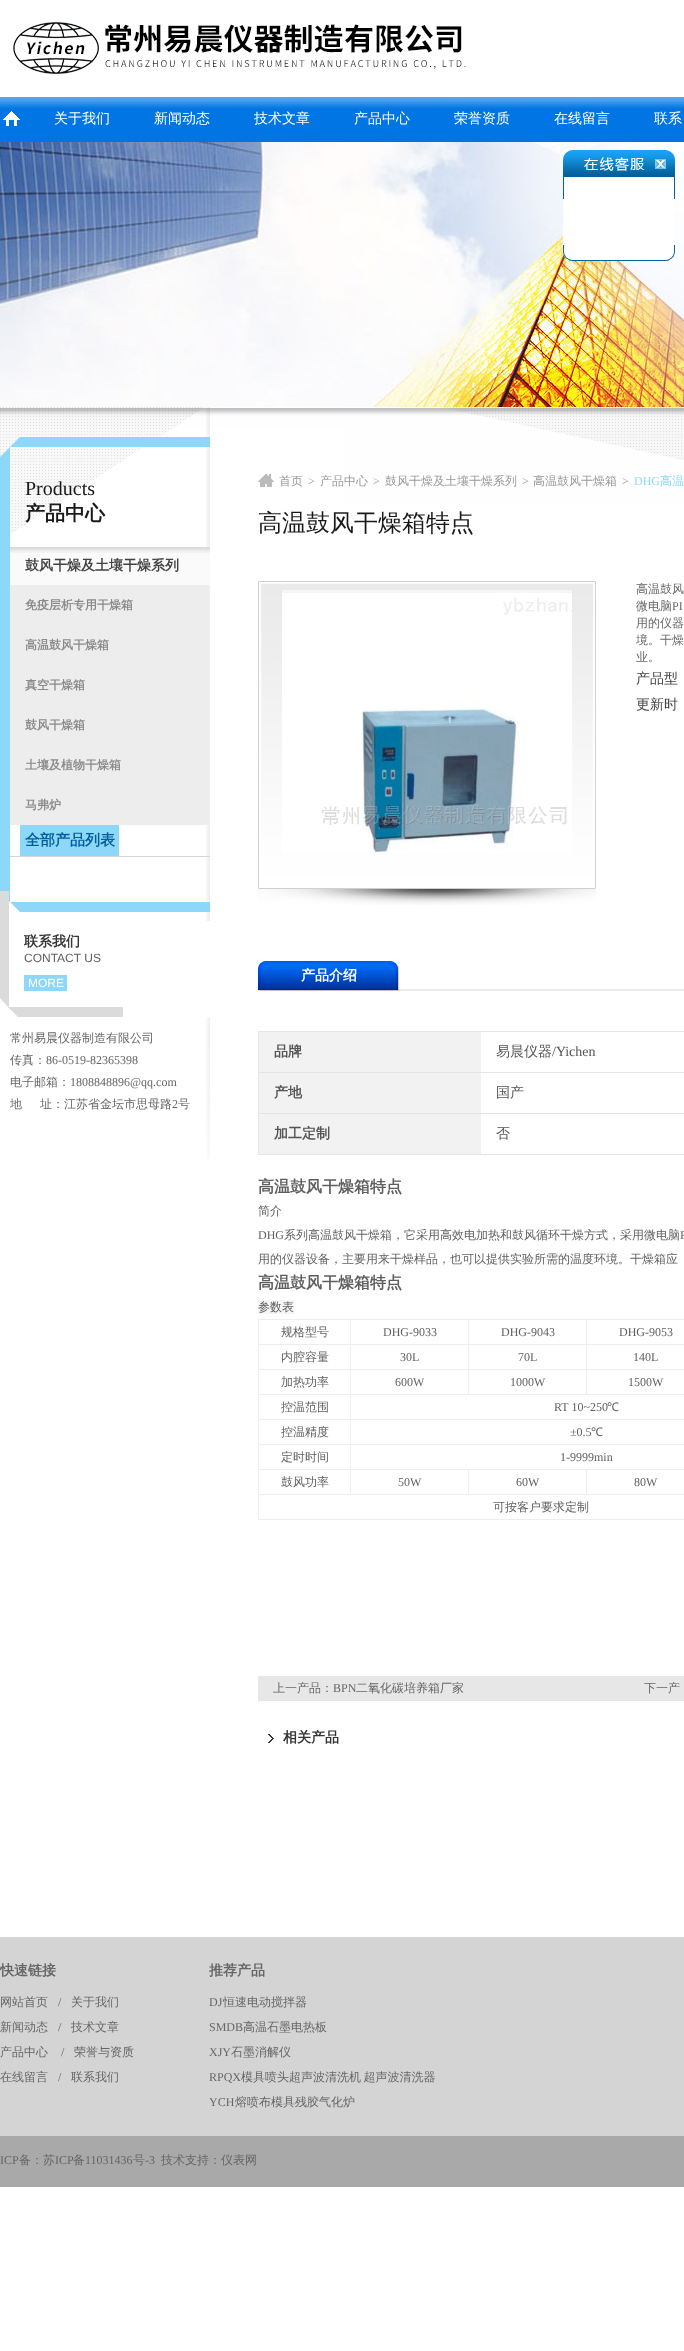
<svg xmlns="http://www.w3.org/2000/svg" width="684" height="2351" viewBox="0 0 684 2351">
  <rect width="100%" height="100%" fill="rgb(255,255,255)"/>
  <image x="13" y="22" width="453" height="52" href="pic1.png"/>
  <image x="0" y="97" width="684" height="45" href="pic2.png"/>
  <image x="3" y="111" width="17" height="15" href="pic3.png"/>
  <g font-family="WenQuanYi Zen Hei" font-size="14" font-weight="500" fill="rgb(255,255,255)">
    <text x="54" y="123">关于我们</text>
    <text x="154" y="123">新闻动态</text>
    <text x="254" y="123">技术文章</text>
    <text x="354" y="123">产品中心</text>
    <text x="454" y="123">荣誉资质</text>
    <text x="554" y="123">在线留言</text>
    <text x="654" y="123">联系</text>
  </g>
  <image x="0" y="142" width="684" height="265" href="pic4.png"/>
  <image x="563" y="150" width="112" height="49" href="pic5.png"/>
  <rect x="563" y="199" width="112" height="46" fill="rgb(255,255,255)"/>
  <image x="563" y="245" width="112" height="16" href="pic6.png"/>
  <image x="0" y="407" width="684" height="134" href="pic7.png"/>
  <image x="206" y="407" width="4" height="752" href="pic12.png"/>
  <image x="0" y="857" width="210" height="55" href="pic8.png"/>
  <image x="0" y="437" width="210" height="110" href="pic9.png"/>
  <text x="25" y="495" font-family="Liberation Serif" font-size="20" fill="rgb(25,25,25)">Products</text>
  <text x="25" y="520" font-family="WenQuanYi Zen Hei" font-size="20" font-weight="bold" fill="rgb(25,25,25)">产品中心</text>
  <rect x="0" y="547" width="10" height="310" fill="rgb(141,216,248)"/>
  <rect x="10" y="856" width="200" height="1" fill="rgb(214,214,214)"/>
  <rect x="10" y="553" width="200" height="32" fill="rgb(250,250,250)"/>
  <image x="10" y="547" width="200" height="6" href="pic10.png"/>
  <text x="25" y="570" font-family="WenQuanYi Zen Hei" font-size="14" font-weight="bold" fill="rgb(67,67,67)">鼓风干燥及土壤干燥系列</text>
  <rect x="10" y="585" width="199" height="240" fill="rgb(237,237,237)"/>
  <g font-family="WenQuanYi Zen Hei" font-size="12" font-weight="bold" fill="rgb(138,138,138)">
    <text x="25" y="609">免疫层析专用干燥箱</text>
    <text x="25" y="649">高温鼓风干燥箱</text>
    <text x="25" y="689">真空干燥箱</text>
    <text x="25" y="729">鼓风干燥箱</text>
    <text x="25" y="769">土壤及植物干燥箱</text>
    <text x="25" y="809">马弗炉</text>
  </g>
  <rect x="20" y="825" width="99" height="31" fill="rgb(141,216,248)"/>
  <text x="25" y="845" font-family="WenQuanYi Zen Hei" font-size="15" font-weight="bold" fill="rgb(0,95,157)">全部产品列表</text>
  <image x="0" y="891" width="123" height="126" href="pic11.png"/>
  <rect x="206" y="921" width="4" height="96" fill="rgb(255,255,255)"/>
  <text x="24" y="946" font-family="WenQuanYi Zen Hei" font-size="14" font-weight="bold" fill="rgb(53,53,53)">联系我们</text>
  <text x="24" y="962" font-family="Liberation Sans" font-size="12" fill="rgb(95,95,95)">CONTACT US</text>
  <rect x="24" y="975" width="43" height="16" fill="rgb(141,216,248)"/>
  <text x="28" y="987" font-family="Liberation Sans" font-size="12" fill="rgb(255,255,255)">MORE</text>
  <g font-family="WenQuanYi Zen Hei" font-size="12" font-weight="500" fill="rgb(102,102,102)">
    <text>
      <tspan x="10" y="1042">常州易晨仪器制造有限公司</tspan>
      <tspan x="10" y="1064">传真：</tspan>
    </text>
  </g>
  <text x="46" y="1064" font-family="Liberation Serif" font-size="12" fill="rgb(102,102,102)">86-0519-82365398</text>
  <text x="10" y="1086" font-family="WenQuanYi Zen Hei" font-size="12" font-weight="500" fill="rgb(102,102,102)">电子邮箱：</text>
  <text x="70" y="1086" font-family="Liberation Serif" font-size="12" fill="rgb(102,102,102)">1808848896@qq.com</text>
  <g font-family="WenQuanYi Zen Hei" font-size="12" font-weight="500" fill="rgb(102,102,102)">
    <text x="10" y="1108">地</text>
    <text x="40" y="1108">址：江苏省金坛市思母路</text>
  </g>
  <text x="172" y="1108" font-family="Liberation Serif" font-size="12" fill="rgb(102,102,102)">2</text>
  <text x="178" y="1108" font-family="WenQuanYi Zen Hei" font-size="12" font-weight="500" fill="rgb(102,102,102)">号</text>
  <image x="258" y="473" width="16" height="14" href="pic13.png"/>
  <text x="279" y="485" font-family="WenQuanYi Zen Hei" font-size="12" font-weight="500" fill="rgb(153,153,153)">首页</text>
  <text x="308" y="485" font-family="Liberation Serif" font-size="12" fill="rgb(153,153,153)">&gt;</text>
  <text x="320" y="485" font-family="WenQuanYi Zen Hei" font-size="12" font-weight="500" fill="rgb(153,153,153)">产品中心</text>
  <text x="373" y="485" font-family="Liberation Serif" font-size="12" fill="rgb(153,153,153)">&gt;</text>
  <text x="385" y="485" font-family="WenQuanYi Zen Hei" font-size="12" font-weight="500" fill="rgb(153,153,153)">鼓风干燥及土壤干燥系列</text>
  <text x="522" y="485" font-family="Liberation Serif" font-size="12" fill="rgb(153,153,153)">&gt;</text>
  <text x="533" y="485" font-family="WenQuanYi Zen Hei" font-size="12" font-weight="500" fill="rgb(153,153,153)">高温鼓风干燥箱</text>
  <text x="622" y="485" font-family="Liberation Serif" font-size="12" fill="rgb(153,153,153)">&gt;</text>
  <text x="634" y="485" font-family="Liberation Serif" font-size="12" fill="rgb(141,216,248)">DHG</text>
  <text x="660" y="485" font-family="WenQuanYi Zen Hei" font-size="12" font-weight="500" fill="rgb(141,216,248)">高温</text>
  <text x="258" y="531" font-family="WenQuanYi Zen Hei" font-size="24" font-weight="500" fill="rgb(25,25,25)">高温鼓风干燥箱特点</text>
  <image x="258" y="581" width="338" height="324" href="pic14.png"/>
  <image x="282" y="590" width="290" height="264" href="pic15.png"/>
  <g font-family="WenQuanYi Zen Hei" font-size="12" font-weight="500" fill="rgb(102,102,102)">
    <text>
      <tspan x="636" y="593">高温鼓风</tspan>
      <tspan x="636" y="610">微电脑</tspan>
    </text>
  </g>
  <text x="672" y="610" font-family="Liberation Serif" font-size="12" fill="rgb(102,102,102)">PI</text>
  <g font-family="WenQuanYi Zen Hei" font-size="12" font-weight="500" fill="rgb(102,102,102)">
    <text>
      <tspan x="636" y="627">用的仪器</tspan>
      <tspan x="636" y="644">境。干燥</tspan>
      <tspan x="636" y="661">业。</tspan>
    </text>
  </g>
  <g font-family="WenQuanYi Zen Hei" font-size="14" font-weight="500" fill="rgb(67,67,67)">
    <text>
      <tspan x="636" y="683">产品型</tspan>
      <tspan x="636" y="709">更新时</tspan>
    </text>
  </g>
  <rect x="399" y="989" width="285" height="2" fill="rgb(234,234,234)"/>
  <image x="258" y="961" width="141" height="30" href="pic16.png"/>
  <text x="301" y="980" font-family="WenQuanYi Zen Hei" font-size="14" font-weight="bold" fill="rgb(255,255,255)">产品介绍</text>
  <rect x="258" y="1031" width="426" height="1" fill="rgb(230,229,229)"/>
  <rect x="258" y="1031" width="1" height="124" fill="rgb(230,229,229)"/>
  <rect x="259" y="1032" width="222" height="40" fill="rgb(242,242,242)"/>
  <rect x="259" y="1072" width="425" height="1" fill="rgb(230,229,229)"/>
  <text x="274" y="1056" font-family="WenQuanYi Zen Hei" font-size="14" font-weight="bold" fill="rgb(85,85,85)">品牌</text>
  <text x="496" y="1056" font-family="WenQuanYi Zen Hei" font-size="14" font-weight="500" fill="rgb(85,85,85)">易晨仪器</text>
  <text x="552" y="1056" font-family="Liberation Serif" font-size="14" fill="rgb(85,85,85)">/Yichen</text>
  <rect x="259" y="1073" width="222" height="40" fill="rgb(242,242,242)"/>
  <rect x="259" y="1113" width="425" height="1" fill="rgb(230,229,229)"/>
  <text x="274" y="1097" font-family="WenQuanYi Zen Hei" font-size="14" font-weight="bold" fill="rgb(85,85,85)">产地</text>
  <text x="496" y="1097" font-family="WenQuanYi Zen Hei" font-size="14" font-weight="500" fill="rgb(85,85,85)">国产</text>
  <rect x="259" y="1114" width="222" height="40" fill="rgb(242,242,242)"/>
  <rect x="259" y="1154" width="425" height="1" fill="rgb(230,229,229)"/>
  <text x="274" y="1138" font-family="WenQuanYi Zen Hei" font-size="14" font-weight="bold" fill="rgb(85,85,85)">加工定制</text>
  <text x="496" y="1138" font-family="WenQuanYi Zen Hei" font-size="14" font-weight="500" fill="rgb(85,85,85)">否</text>
  <text x="258" y="1192" font-family="WenQuanYi Zen Hei" font-size="16" font-weight="bold" fill="rgb(95,95,95)">高温鼓风干燥箱特点</text>
  <text x="258" y="1215" font-family="WenQuanYi Zen Hei" font-size="12" font-weight="500" fill="rgb(95,95,95)">简介</text>
  <text x="258" y="1239" font-family="Liberation Serif" font-size="12" fill="rgb(95,95,95)">DHG</text>
  <text x="284" y="1239" font-family="WenQuanYi Zen Hei" font-size="12" font-weight="500" fill="rgb(95,95,95)">系列高温鼓风干燥箱，它采用高效电加热和鼓风循环干燥方式，采用微电脑</text>
  <text x="680" y="1239" font-family="Liberation Serif" font-size="12" fill="rgb(95,95,95)">P</text>
  <text x="258" y="1263" font-family="WenQuanYi Zen Hei" font-size="12" font-weight="500" fill="rgb(95,95,95)">用的仪器设备，主要用来干燥样品，也可以提供实验所需的温度环境。干燥箱应</text>
  <text x="258" y="1288" font-family="WenQuanYi Zen Hei" font-size="16" font-weight="bold" fill="rgb(95,95,95)">高温鼓风干燥箱特点</text>
  <rect x="258" y="1300" width="36" height="14" fill="rgb(245,245,245)"/>
  <text x="258" y="1311" font-family="WenQuanYi Zen Hei" font-size="12" font-weight="500" fill="rgb(95,95,95)">参数表</text>
  <rect x="586" y="1319" width="98" height="1" fill="rgb(238,238,238)"/>
  <rect x="586" y="1344" width="98" height="1" fill="rgb(238,238,238)"/>
  <rect x="586" y="1369" width="98" height="1" fill="rgb(238,238,238)"/>
  <rect x="350" y="1394" width="334" height="1" fill="rgb(238,238,238)"/>
  <rect x="586" y="1369" width="1" height="26" fill="rgb(238,238,238)"/>
  <rect x="468" y="1369" width="119" height="1" fill="rgb(238,238,238)"/>
  <rect x="586" y="1344" width="1" height="26" fill="rgb(238,238,238)"/>
  <rect x="468" y="1344" width="119" height="1" fill="rgb(238,238,238)"/>
  <rect x="586" y="1319" width="1" height="26" fill="rgb(238,238,238)"/>
  <rect x="468" y="1319" width="119" height="1" fill="rgb(238,238,238)"/>
  <rect x="468" y="1369" width="1" height="26" fill="rgb(238,238,238)"/>
  <rect x="350" y="1369" width="119" height="1" fill="rgb(238,238,238)"/>
  <rect x="468" y="1344" width="1" height="26" fill="rgb(238,238,238)"/>
  <rect x="350" y="1344" width="119" height="1" fill="rgb(238,238,238)"/>
  <rect x="468" y="1319" width="1" height="26" fill="rgb(238,238,238)"/>
  <rect x="350" y="1319" width="119" height="1" fill="rgb(238,238,238)"/>
  <rect x="350" y="1419" width="334" height="1" fill="rgb(238,238,238)"/>
  <rect x="350" y="1444" width="334" height="1" fill="rgb(238,238,238)"/>
  <rect x="586" y="1469" width="98" height="1" fill="rgb(238,238,238)"/>
  <rect x="258" y="1494" width="426" height="1" fill="rgb(238,238,238)"/>
  <rect x="586" y="1469" width="1" height="26" fill="rgb(238,238,238)"/>
  <rect x="468" y="1469" width="119" height="1" fill="rgb(238,238,238)"/>
  <rect x="468" y="1469" width="1" height="26" fill="rgb(238,238,238)"/>
  <rect x="350" y="1469" width="119" height="1" fill="rgb(238,238,238)"/>
  <rect x="350" y="1469" width="1" height="26" fill="rgb(238,238,238)"/>
  <rect x="258" y="1469" width="93" height="1" fill="rgb(238,238,238)"/>
  <rect x="350" y="1444" width="1" height="26" fill="rgb(238,238,238)"/>
  <rect x="258" y="1444" width="93" height="1" fill="rgb(238,238,238)"/>
  <rect x="350" y="1419" width="1" height="26" fill="rgb(238,238,238)"/>
  <rect x="258" y="1419" width="93" height="1" fill="rgb(238,238,238)"/>
  <rect x="350" y="1394" width="1" height="26" fill="rgb(238,238,238)"/>
  <rect x="258" y="1394" width="93" height="1" fill="rgb(238,238,238)"/>
  <rect x="350" y="1369" width="1" height="26" fill="rgb(238,238,238)"/>
  <rect x="258" y="1369" width="93" height="1" fill="rgb(238,238,238)"/>
  <rect x="350" y="1344" width="1" height="26" fill="rgb(238,238,238)"/>
  <rect x="258" y="1344" width="93" height="1" fill="rgb(238,238,238)"/>
  <rect x="350" y="1319" width="1" height="26" fill="rgb(238,238,238)"/>
  <rect x="258" y="1319" width="93" height="1" fill="rgb(238,238,238)"/>
  <rect x="258" y="1519" width="426" height="1" fill="rgb(238,238,238)"/>
  <rect x="258" y="1494" width="1" height="26" fill="rgb(238,238,238)"/>
  <rect x="258" y="1469" width="1" height="26" fill="rgb(238,238,238)"/>
  <rect x="258" y="1444" width="1" height="26" fill="rgb(238,238,238)"/>
  <rect x="258" y="1419" width="1" height="26" fill="rgb(238,238,238)"/>
  <rect x="258" y="1394" width="1" height="26" fill="rgb(238,238,238)"/>
  <rect x="258" y="1369" width="1" height="26" fill="rgb(238,238,238)"/>
  <rect x="258" y="1344" width="1" height="26" fill="rgb(238,238,238)"/>
  <rect x="258" y="1319" width="1" height="26" fill="rgb(238,238,238)"/>
  <text x="281" y="1336" font-family="WenQuanYi Zen Hei" font-size="12" font-weight="500" fill="rgb(95,95,95)">规格型号</text>
  <g font-family="Liberation Serif" font-size="12" fill="rgb(95,95,95)">
    <text x="383" y="1336">DHG-9033</text>
    <text x="501" y="1336">DHG-9043</text>
    <text x="619" y="1336">DHG-9053</text>
  </g>
  <text x="281" y="1361" font-family="WenQuanYi Zen Hei" font-size="12" font-weight="500" fill="rgb(95,95,95)">内腔容量</text>
  <g font-family="Liberation Serif" font-size="12" fill="rgb(95,95,95)">
    <text x="400" y="1361">30L</text>
    <text x="518" y="1361">70L</text>
    <text x="633" y="1361">140L</text>
  </g>
  <text x="281" y="1386" font-family="WenQuanYi Zen Hei" font-size="12" font-weight="500" fill="rgb(95,95,95)">加热功率</text>
  <g font-family="Liberation Serif" font-size="12" fill="rgb(95,95,95)">
    <text x="395" y="1386">600W</text>
    <text x="510" y="1386">1000W</text>
    <text x="628" y="1386">1500W</text>
  </g>
  <text x="281" y="1411" font-family="WenQuanYi Zen Hei" font-size="12" font-weight="500" fill="rgb(95,95,95)">控温范围</text>
  <text x="554" y="1411" font-family="Liberation Serif" font-size="12" fill="rgb(95,95,95)">RT 10~250</text>
  <text x="607" y="1411" font-family="Noto Sans" font-size="12" fill="rgb(95,95,95)">℃</text>
  <text x="281" y="1436" font-family="WenQuanYi Zen Hei" font-size="12" font-weight="500" fill="rgb(95,95,95)">控温精度</text>
  <text x="570" y="1436" font-family="Liberation Serif" font-size="12" fill="rgb(95,95,95)">±0.5</text>
  <text x="591" y="1436" font-family="Noto Sans" font-size="12" fill="rgb(95,95,95)">℃</text>
  <text x="281" y="1461" font-family="WenQuanYi Zen Hei" font-size="12" font-weight="500" fill="rgb(95,95,95)">定时时间</text>
  <text x="560" y="1461" font-family="Liberation Serif" font-size="12" fill="rgb(95,95,95)">1-9999min</text>
  <text x="281" y="1486" font-family="WenQuanYi Zen Hei" font-size="12" font-weight="500" fill="rgb(95,95,95)">鼓风功率</text>
  <g font-family="Liberation Serif" font-size="12" fill="rgb(95,95,95)">
    <text x="398" y="1486">50W</text>
    <text x="516" y="1486">60W</text>
    <text x="634" y="1486">80W</text>
  </g>
  <text x="493" y="1511" font-family="WenQuanYi Zen Hei" font-size="12" font-weight="500" fill="rgb(95,95,95)">可按客户要求定制</text>
  <rect x="258" y="1676" width="426" height="25" fill="rgb(231,231,231)"/>
  <text x="273" y="1692" font-family="WenQuanYi Zen Hei" font-size="12" font-weight="500" fill="rgb(102,102,102)">上一产品：</text>
  <text x="333" y="1692" font-family="Liberation Serif" font-size="12" fill="rgb(102,102,102)">BPN</text>
  <g font-family="WenQuanYi Zen Hei" font-size="12" font-weight="500" fill="rgb(102,102,102)">
    <text x="356" y="1692">二氧化碳培养箱厂家</text>
    <text x="644" y="1692">下一产</text>
  </g>
  <image x="268" y="1734" width="6" height="9" href="pic17.png"/>
  <text x="283" y="1742" font-family="WenQuanYi Zen Hei" font-size="14" font-weight="bold" fill="rgb(53,53,53)">相关产品</text>
  <rect x="0" y="1937" width="684" height="199" fill="rgb(212,212,212)"/>
  <text x="0" y="1975" font-family="WenQuanYi Zen Hei" font-size="14" font-weight="bold" fill="rgb(102,102,102)">快速链接</text>
  <text x="0" y="2006" font-family="WenQuanYi Zen Hei" font-size="12" font-weight="500" fill="rgb(102,102,102)">网站首页</text>
  <text x="58" y="2006" font-family="Liberation Serif" font-size="12" fill="rgb(102,102,102)">/</text>
  <g font-family="WenQuanYi Zen Hei" font-size="12" font-weight="500" fill="rgb(102,102,102)">
    <text x="71" y="2006">关于我们</text>
    <text x="0" y="2031">新闻动态</text>
  </g>
  <text x="58" y="2031" font-family="Liberation Serif" font-size="12" fill="rgb(102,102,102)">/</text>
  <g font-family="WenQuanYi Zen Hei" font-size="12" font-weight="500" fill="rgb(102,102,102)">
    <text x="71" y="2031">技术文章</text>
    <text x="0" y="2056">产品中心</text>
  </g>
  <text x="61" y="2056" font-family="Liberation Serif" font-size="12" fill="rgb(102,102,102)">/</text>
  <g font-family="WenQuanYi Zen Hei" font-size="12" font-weight="500" fill="rgb(102,102,102)">
    <text x="74" y="2056">荣誉与资质</text>
    <text x="0" y="2081">在线留言</text>
  </g>
  <text x="58" y="2081" font-family="Liberation Serif" font-size="12" fill="rgb(102,102,102)">/</text>
  <text x="71" y="2081" font-family="WenQuanYi Zen Hei" font-size="12" font-weight="500" fill="rgb(102,102,102)">联系我们</text>
  <text x="209" y="1975" font-family="WenQuanYi Zen Hei" font-size="14" font-weight="bold" fill="rgb(102,102,102)">推荐产品</text>
  <text x="209" y="2006" font-family="Liberation Serif" font-size="12" fill="rgb(102,102,102)">DJ</text>
  <text x="223" y="2006" font-family="WenQuanYi Zen Hei" font-size="12" font-weight="500" fill="rgb(102,102,102)">恒速电动搅拌器</text>
  <text x="209" y="2031" font-family="Liberation Serif" font-size="12" fill="rgb(102,102,102)">SMDB</text>
  <text x="243" y="2031" font-family="WenQuanYi Zen Hei" font-size="12" font-weight="500" fill="rgb(102,102,102)">高温石墨电热板</text>
  <text x="209" y="2056" font-family="Liberation Serif" font-size="12" fill="rgb(102,102,102)">XJY</text>
  <text x="231" y="2056" font-family="WenQuanYi Zen Hei" font-size="12" font-weight="500" fill="rgb(102,102,102)">石墨消解仪</text>
  <text x="209" y="2081" font-family="Liberation Serif" font-size="12" fill="rgb(102,102,102)">RPQX</text>
  <text x="241" y="2081" word-spacing="-1" font-family="WenQuanYi Zen Hei" font-size="12" font-weight="500" fill="rgb(102,102,102)">模具喷头超声波清洗机 超声波清洗器</text>
  <text x="209" y="2106" font-family="Liberation Serif" font-size="12" fill="rgb(102,102,102)">YCH</text>
  <text x="235" y="2106" font-family="WenQuanYi Zen Hei" font-size="12" font-weight="500" fill="rgb(102,102,102)">熔喷布模具残胶气化炉</text>
  <rect x="0" y="2136" width="684" height="51" fill="rgb(169,169,169)"/>
  <text x="0" y="2164" font-family="Liberation Serif" font-size="12" fill="rgb(102,102,102)">ICP</text>
  <g font-family="WenQuanYi Zen Hei" font-size="12" font-weight="500" fill="rgb(102,102,102)">
    <text x="19" y="2164">备：</text>
    <text x="43" y="2164">苏</text>
  </g>
  <text x="55" y="2164" font-family="Liberation Serif" font-size="12" fill="rgb(102,102,102)">ICP</text>
  <text x="73" y="2164" font-family="WenQuanYi Zen Hei" font-size="12" font-weight="500" fill="rgb(102,102,102)">备</text>
  <text x="85" y="2164" font-family="Liberation Serif" font-size="12" fill="rgb(102,102,102)">11031436</text>
  <text x="133" y="2164" font-family="WenQuanYi Zen Hei" font-size="12" font-weight="500" fill="rgb(102,102,102)">号</text>
  <text x="145" y="2164" font-family="Liberation Serif" font-size="12" fill="rgb(102,102,102)">-3</text>
  <text x="161" y="2164" font-family="WenQuanYi Zen Hei" font-size="12" font-weight="500" fill="rgb(102,102,102)">技术支持：仪表网</text>
</svg>
